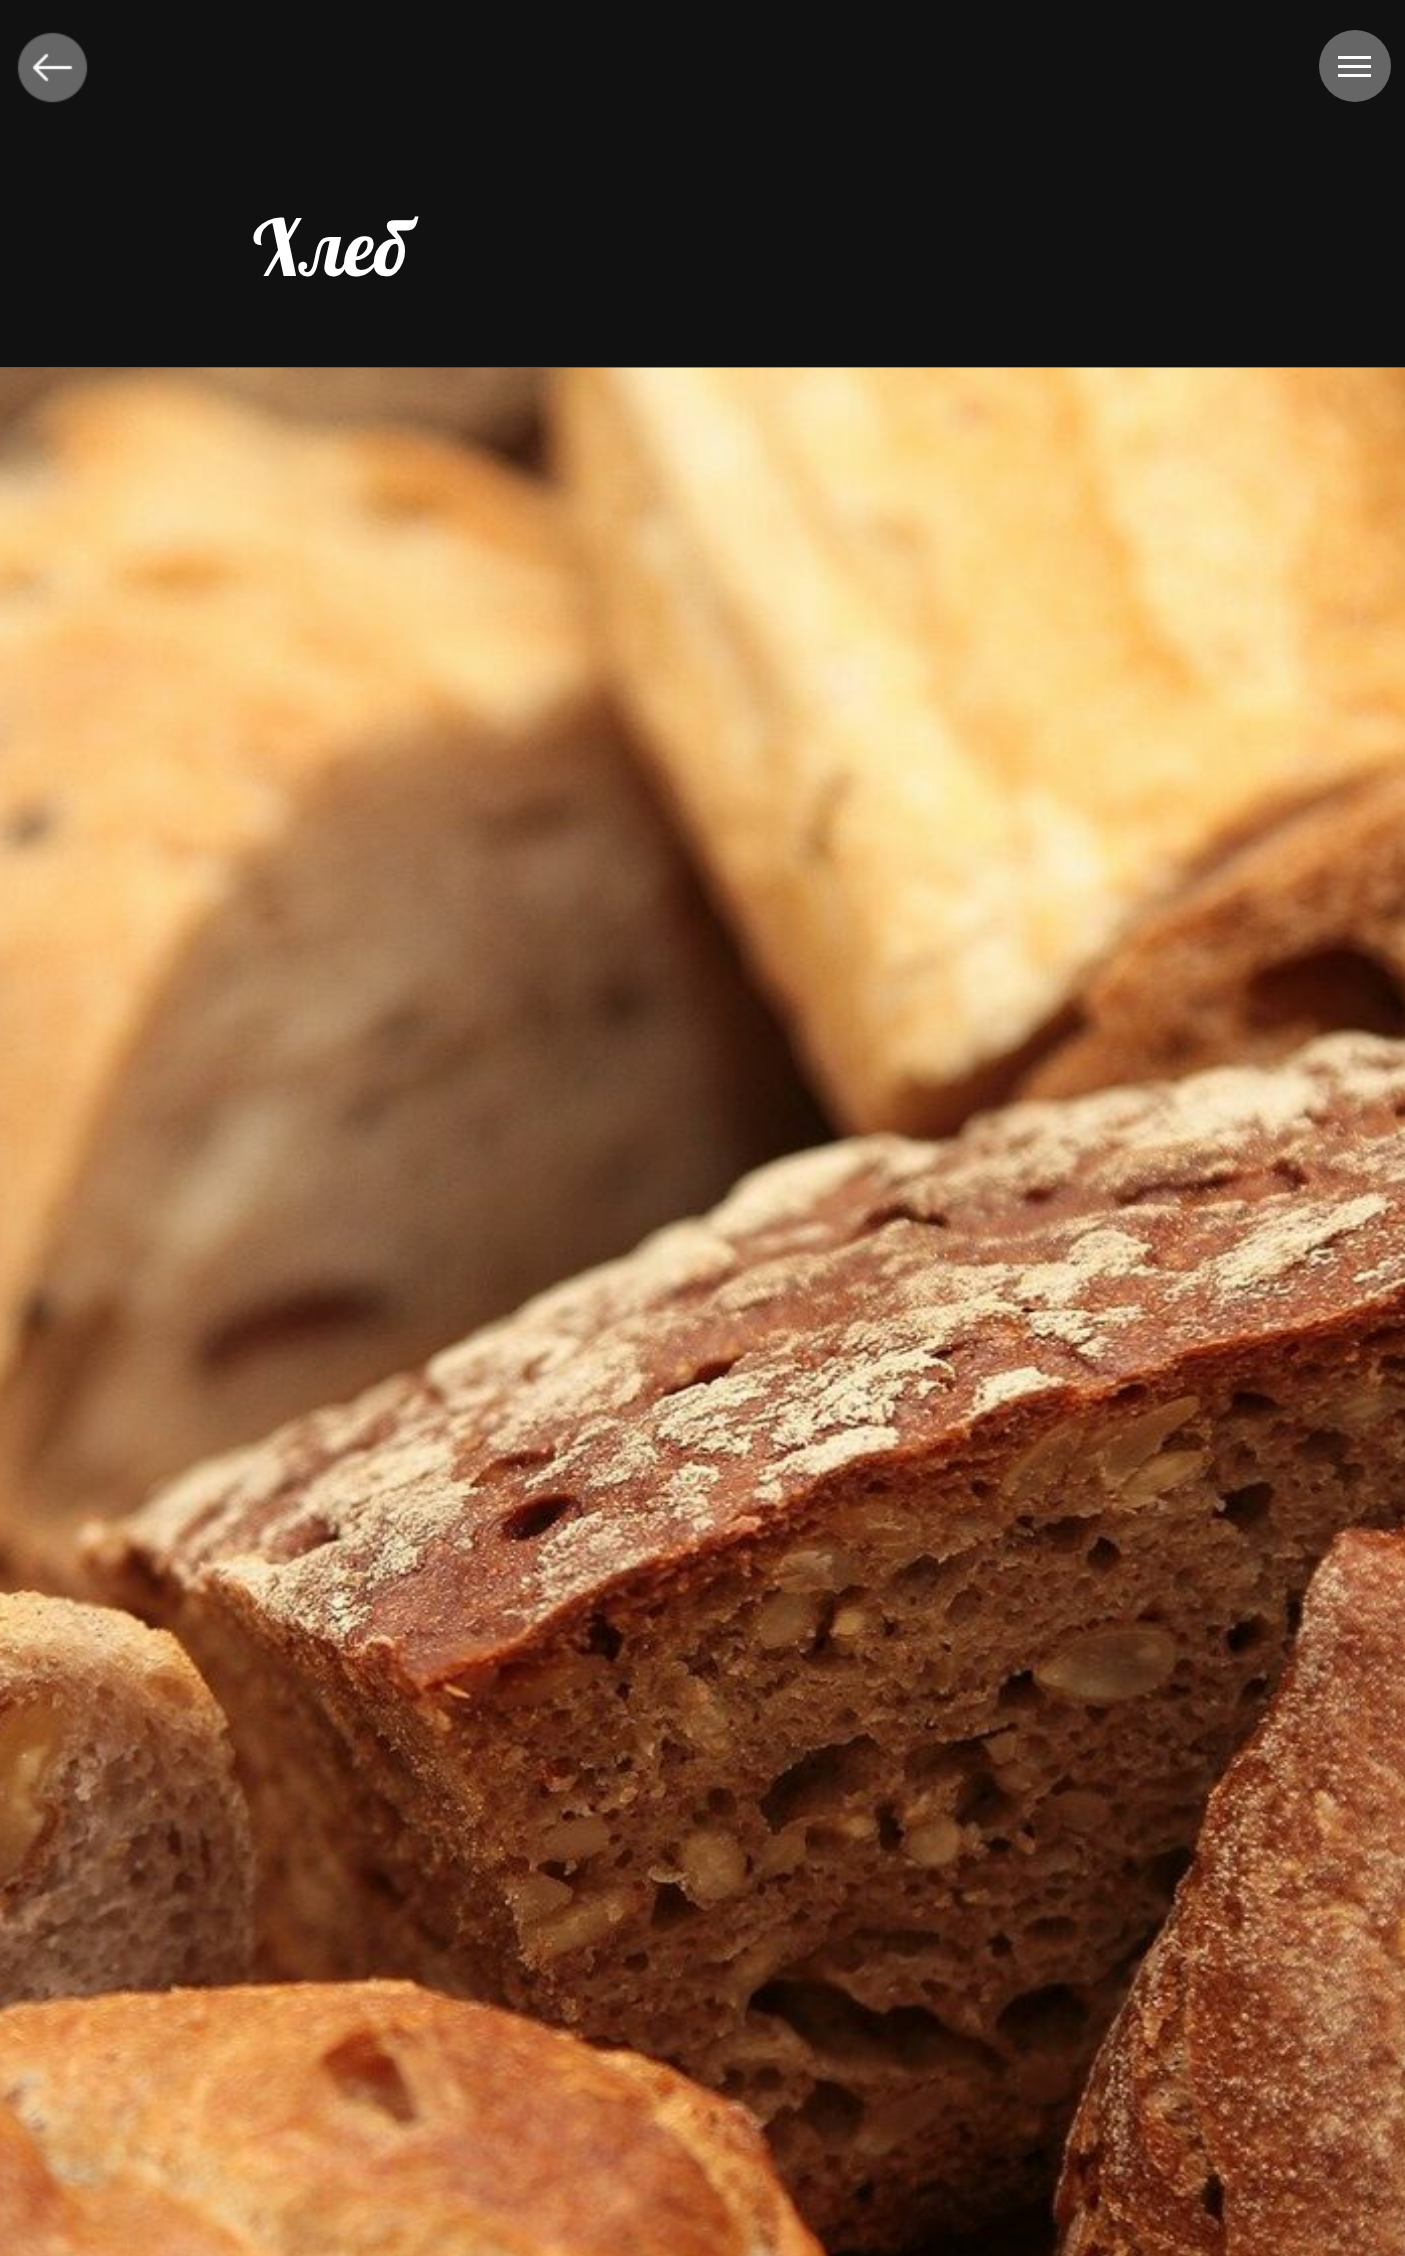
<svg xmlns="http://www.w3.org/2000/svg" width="1405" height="2256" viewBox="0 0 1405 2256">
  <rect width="100%" height="100%" fill="rgb(17,17,17)"/>
  <image x="17" y="32" width="71" height="71" href="pic1.png"/>
  <circle cx="1355" cy="66" r="36" fill="rgb(102,102,102)"/>
  <rect x="1338" y="56" width="33" height="3" fill="rgb(255,255,255)"/>
  <rect x="1338" y="65" width="33" height="3" fill="rgb(255,255,255)"/>
  <rect x="1338" y="74" width="33" height="3" fill="rgb(255,255,255)"/>
  <text x="253" y="276" font-family="Lobster" font-size="78" fill="rgb(255,255,255)">Хлеб</text>
  <image x="0" y="367" width="1405" height="1" href="pic2.png"/>
  <image x="0" y="367" width="1405" height="1889" href="pic3.png"/>
</svg>
